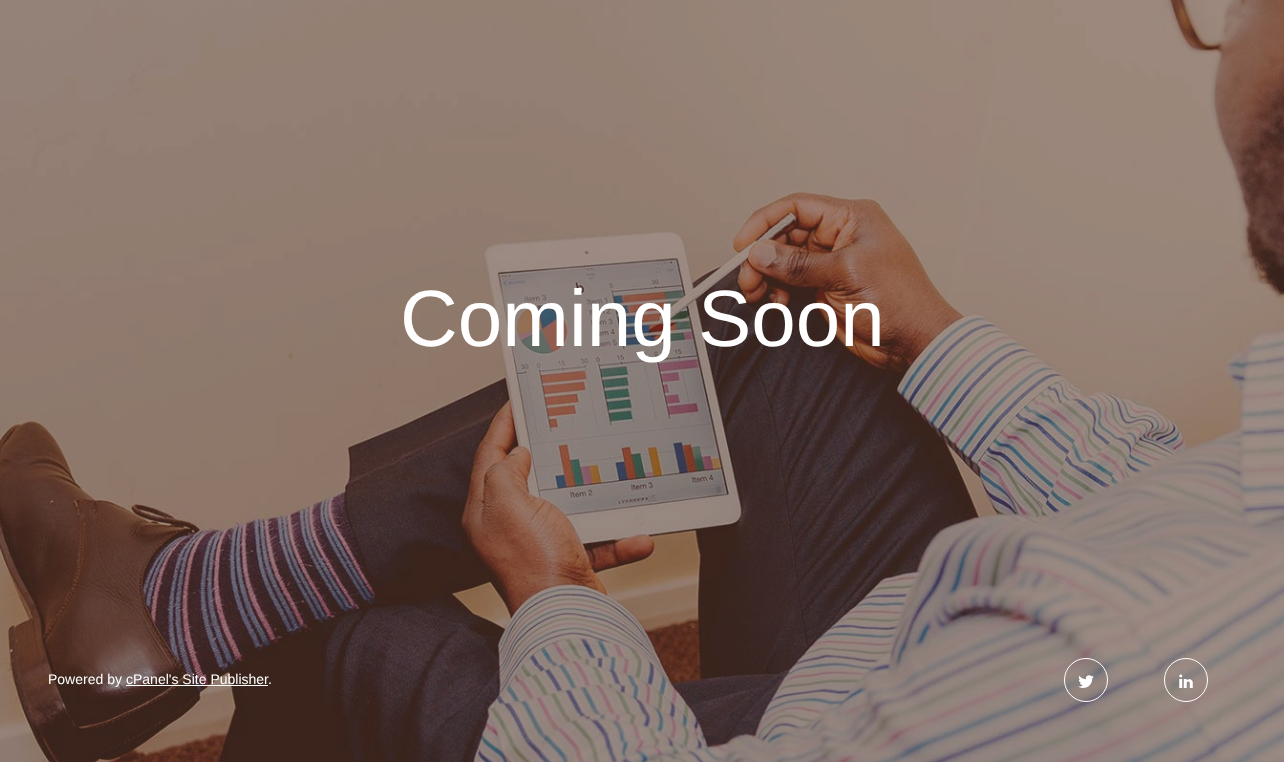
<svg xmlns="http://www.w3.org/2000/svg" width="1284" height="762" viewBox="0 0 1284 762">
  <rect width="100%" height="100%" fill="rgb(146,81,47)"/>
  <image x="0" y="0" width="1284" height="762" href="pic1.png"/>
  <text x="400" y="346" font-family="Liberation Sans" font-size="80" fill="rgb(255,255,255)">Coming Soon</text>
  <g font-family="Liberation Sans" font-size="14" fill="rgb(255,255,255)">
    <text x="48" y="684">Powered by</text>
    <text x="126" y="684">cPanel's Site Publisher</text>
  </g>
  <rect x="126" y="685" width="142" height="1" fill="rgb(255,255,255)"/>
  <text x="268" y="684" font-family="Liberation Sans" font-size="14" fill="rgb(255,255,255)">.</text>
  <circle cx="1086" cy="680" r="21.5" fill="none" stroke="rgb(255,255,255)"/>
  <image x="1078" y="675" width="16" height="13" href="pic2.png"/>
  <circle cx="1186" cy="680" r="21.5" fill="none" stroke="rgb(255,255,255)"/>
  <image x="1179" y="674" width="14" height="14" href="pic3.png"/>
</svg>
